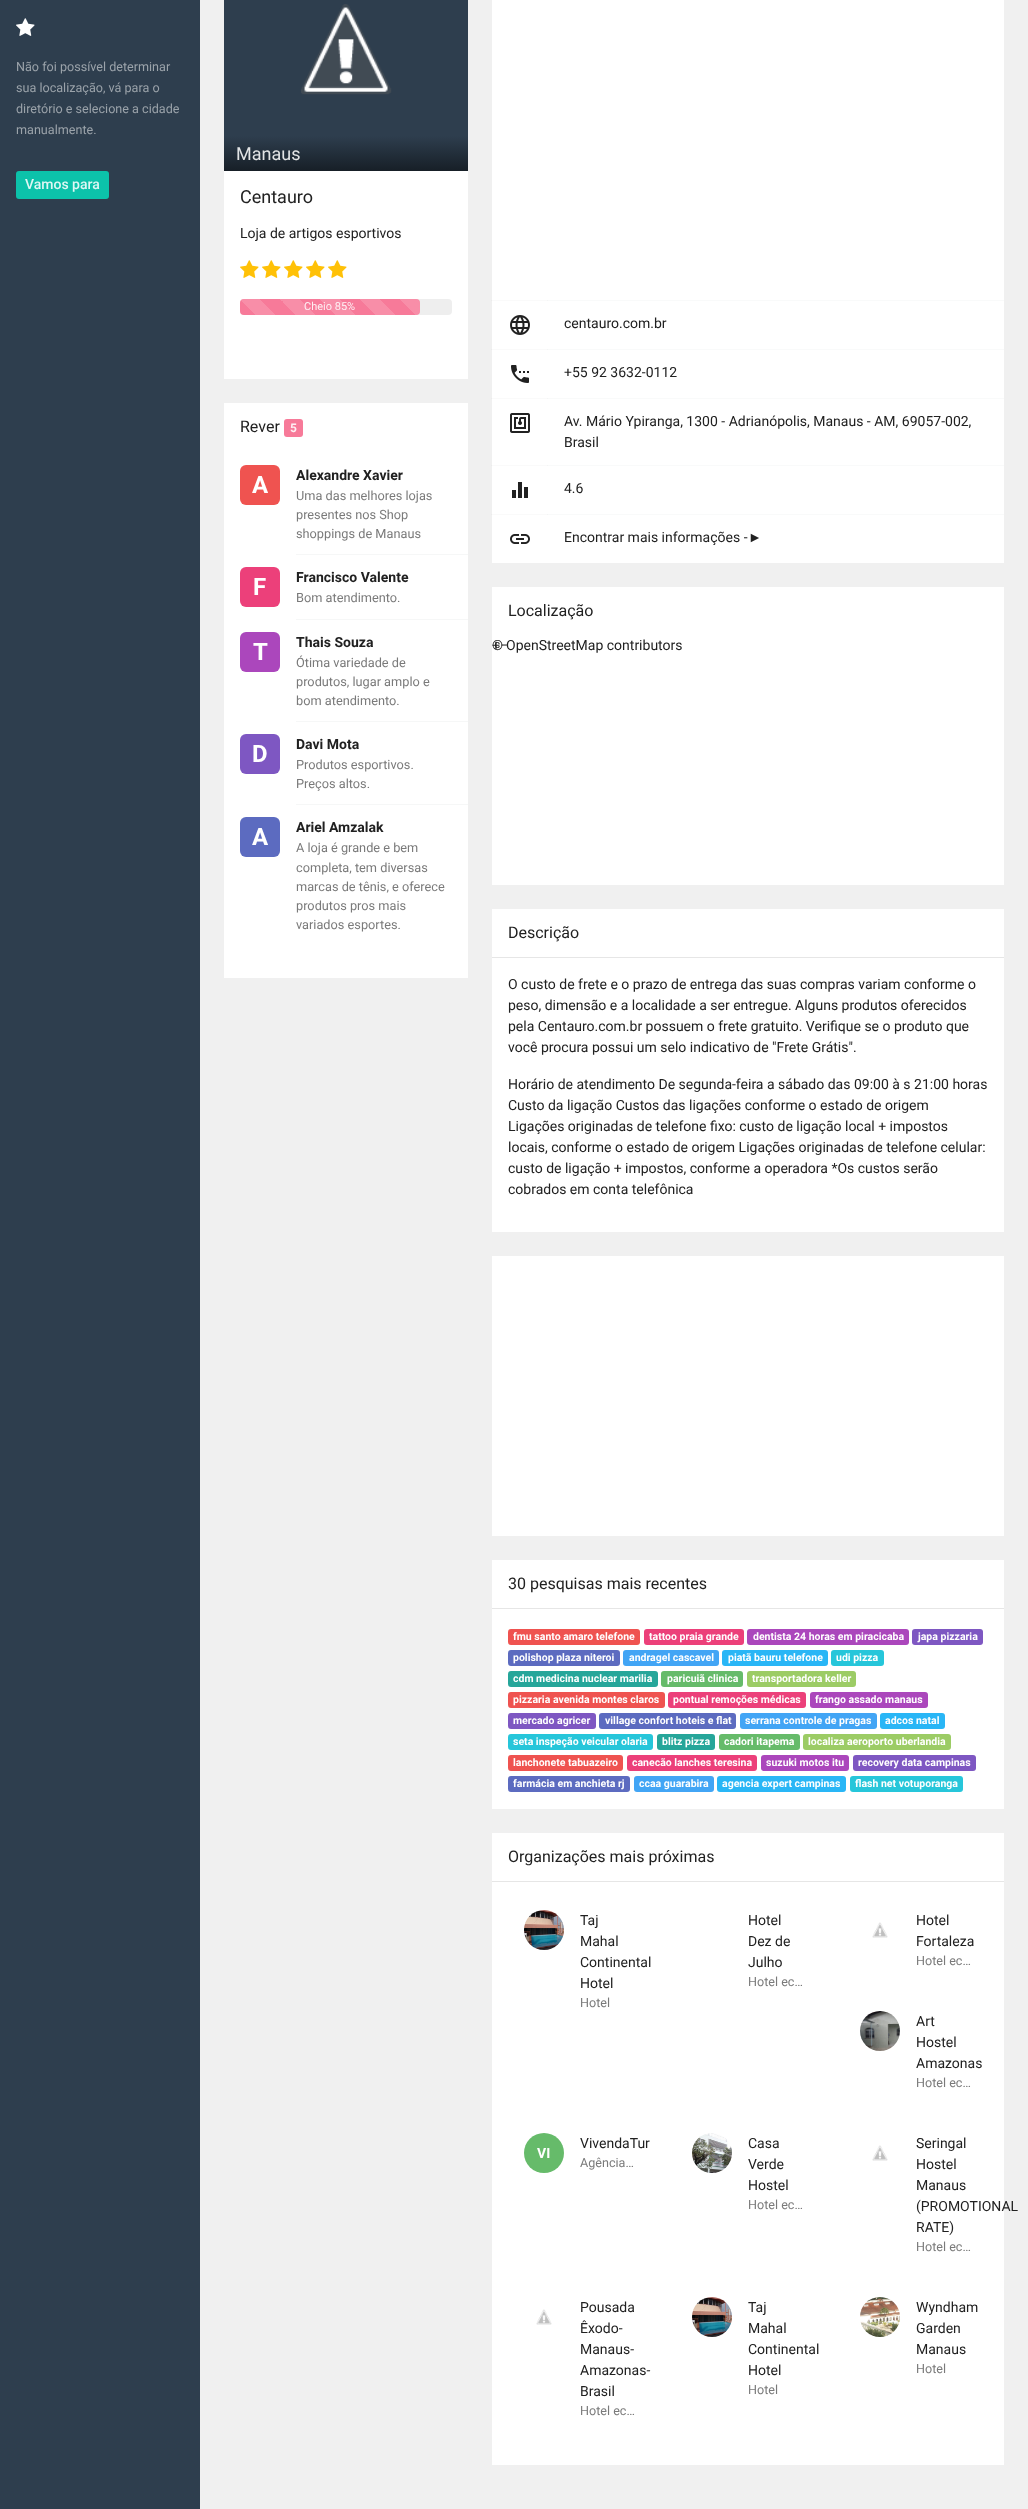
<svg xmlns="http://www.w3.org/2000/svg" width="1028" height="2509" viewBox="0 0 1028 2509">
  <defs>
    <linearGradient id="g1" gradientUnits="userSpaceOnUse" x1="346" y1="136" x2="346" y2="171"><stop offset="0" stop-color="rgb(46,62,78)"/><stop offset="1" stop-color="rgb(23,31,39)"/></linearGradient>
    <linearGradient id="g2" gradientUnits="userSpaceOnUse" x1="240" y1="339" x2="280" y2="299"><stop offset="0.25" stop-color="rgb(255,255,255)" stop-opacity="0.15"/><stop offset="0.25" stop-color="rgb(255,255,255)" stop-opacity="0"/><stop offset="0.5" stop-color="rgb(255,255,255)" stop-opacity="0"/><stop offset="0.5" stop-color="rgb(255,255,255)" stop-opacity="0.15"/><stop offset="0.75" stop-color="rgb(255,255,255)" stop-opacity="0.15"/><stop offset="0.75" stop-color="rgb(255,255,255)" stop-opacity="0"/><stop offset="1" stop-color="rgb(0,0,0)" stop-opacity="0"/></linearGradient>
    <linearGradient id="g3" gradientUnits="userSpaceOnUse" x1="280" y1="339" x2="320" y2="299"><stop offset="0.25" stop-color="rgb(248,142,168)"/><stop offset="0.25" stop-color="rgb(247,122,153)"/><stop offset="0.5" stop-color="rgb(247,122,153)"/><stop offset="0.5" stop-color="rgb(248,142,168)"/><stop offset="0.75" stop-color="rgb(248,142,168)"/><stop offset="0.75" stop-color="rgb(247,122,153)"/><stop offset="1" stop-color="rgb(247,122,153)"/></linearGradient>
    <linearGradient id="g4" gradientUnits="userSpaceOnUse" x1="320" y1="339" x2="360" y2="299"><stop offset="0.25" stop-color="rgb(248,142,168)"/><stop offset="0.25" stop-color="rgb(247,122,153)"/><stop offset="0.5" stop-color="rgb(247,122,153)"/><stop offset="0.5" stop-color="rgb(248,142,168)"/><stop offset="0.75" stop-color="rgb(248,142,168)"/><stop offset="0.75" stop-color="rgb(247,122,153)"/><stop offset="1" stop-color="rgb(247,122,153)"/></linearGradient>
    <linearGradient id="g5" gradientUnits="userSpaceOnUse" x1="360" y1="339" x2="400" y2="299"><stop offset="0.25" stop-color="rgb(248,142,168)"/><stop offset="0.25" stop-color="rgb(247,122,153)"/><stop offset="0.5" stop-color="rgb(247,122,153)"/><stop offset="0.5" stop-color="rgb(248,142,168)"/><stop offset="0.75" stop-color="rgb(248,142,168)"/><stop offset="0.75" stop-color="rgb(247,122,153)"/><stop offset="1" stop-color="rgb(247,122,153)"/></linearGradient>
    <linearGradient id="g6" gradientUnits="userSpaceOnUse" x1="400" y1="339" x2="440" y2="299"><stop offset="0.25" stop-color="rgb(255,255,255)" stop-opacity="0.15"/><stop offset="0.25" stop-color="rgb(255,255,255)" stop-opacity="0"/><stop offset="0.5" stop-color="rgb(255,255,255)" stop-opacity="0"/><stop offset="0.5" stop-color="rgb(255,255,255)" stop-opacity="0.15"/><stop offset="0.75" stop-color="rgb(255,255,255)" stop-opacity="0.15"/><stop offset="0.75" stop-color="rgb(255,255,255)" stop-opacity="0"/><stop offset="1" stop-color="rgb(0,0,0)" stop-opacity="0"/></linearGradient>
  </defs>
  <rect width="100%" height="100%" fill="rgb(240,240,240)"/>
  <rect x="0" y="0" width="200" height="2509" fill="rgb(46,62,78)"/>
  <image x="16" y="18" width="19" height="18" href="pic1.png"/>
  <g font-family="Roboto" font-size="12.6" fill="rgb(155,163,170)">
    <text>
      <tspan x="16" y="71">Não foi possível determinar</tspan>
      <tspan x="16" y="92">sua localização, vá para o</tspan>
      <tspan x="16" y="113">diretório e selecione a cidade</tspan>
      <tspan x="16" y="134">manualmente.</tspan>
    </text>
  </g>
  <rect x="16" y="171" width="93" height="28" rx="3" fill="rgb(12,194,170)"/>
  <text x="25" y="189" font-family="Roboto" font-size="14" font-weight="500" fill="rgb(223,247,244)">Vamos para</text>
  <rect x="224" y="171" width="244" height="208" fill="rgb(255,255,255)"/>
  <rect x="224" y="0" width="244" height="136" fill="rgb(46,62,78)"/>
  <image x="301" y="4" width="91" height="91" href="pic2.png"/>
  <rect x="224" y="136" width="244" height="35" fill="url(#g1)"/>
  <text x="236" y="160" font-family="Roboto" font-size="18" fill="rgb(226,228,229)">Manaus</text>
  <text x="240" y="203" font-family="Roboto" font-size="18" fill="rgb(33,33,33)">Centauro</text>
  <text x="240" y="238" font-family="Roboto" font-size="14" fill="rgb(33,33,33)">Loja de artigos esportivos</text>
  <image x="240" y="260" width="19" height="18" href="pic3.png"/>
  <image x="262" y="260" width="19" height="18" href="pic3.png"/>
  <image x="284" y="260" width="19" height="18" href="pic3.png"/>
  <image x="306" y="260" width="19" height="18" href="pic3.png"/>
  <image x="328" y="260" width="19" height="18" href="pic3.png"/>
  <rect x="240" y="299" width="212" height="16" rx="4" fill="rgb(238,238,238)"/>
  <rect x="240" y="299" width="180" height="16" rx="4" fill="rgb(247,122,153)"/>
  <path d="M244 299H280V315H244C242 315 240 313 240 311V303C240 301 242 299 244 299Z" fill="url(#g2)"/>
  <rect x="280" y="299" width="35" height="16" fill="url(#g3)"/>
  <rect x="320" y="299" width="35" height="16" fill="url(#g4)"/>
  <rect x="360" y="299" width="35" height="16" fill="url(#g5)"/>
  <path d="M400 299H416C418 299 420 301 420 303V311C420 313 418 315 416 315H400Z" fill="url(#g6)"/>
  <text x="304" y="310" font-family="Roboto" font-size="11" fill="rgb(254,239,243)">Cheio 85%</text>
  <rect x="224" y="403" width="244" height="575" fill="rgb(255,255,255)"/>
  <text x="240" y="432" font-family="Roboto" font-size="16" fill="rgb(33,33,33)">Rever</text>
  <rect x="284" y="419" width="19" height="18" rx="3" fill="rgb(247,122,153)"/>
  <text x="290" y="432" font-family="Roboto" font-size="12" font-weight="bold" fill="rgb(254,239,243)">5</text>
  <rect x="240" y="465" width="40" height="40" rx="6" fill="rgb(239,83,80)"/>
  <text x="252" y="493" font-family="Roboto" font-size="24" font-weight="bold" fill="rgb(255,255,255)">A</text>
  <text x="296" y="480" font-family="Roboto" font-size="14" font-weight="bold" fill="rgb(33,33,33)">Alexandre Xavier</text>
  <g font-family="Roboto" font-size="12.75" fill="rgb(122,122,122)">
    <text>
      <tspan x="296" y="500">Uma das melhores lojas</tspan>
      <tspan x="296" y="519">presentes nos Shop</tspan>
      <tspan x="296" y="538">shoppings de Manaus</tspan>
    </text>
  </g>
  <rect x="296" y="554" width="172" height="1" fill="rgb(246,247,247)"/>
  <rect x="240" y="567" width="40" height="40" rx="6" fill="rgb(236,64,122)"/>
  <text x="253" y="595" font-family="Roboto" font-size="24" font-weight="bold" fill="rgb(255,255,255)">F</text>
  <text x="296" y="582" font-family="Roboto" font-size="14" font-weight="bold" fill="rgb(33,33,33)">Francisco Valente</text>
  <text x="296" y="602" font-family="Roboto" font-size="12.75" fill="rgb(122,122,122)">Bom atendimento.</text>
  <rect x="296" y="619" width="172" height="1" fill="rgb(246,247,247)"/>
  <rect x="240" y="632" width="40" height="40" rx="6" fill="rgb(171,71,188)"/>
  <text x="253" y="660" font-family="Roboto" font-size="24" font-weight="bold" fill="rgb(255,255,255)">T</text>
  <text x="296" y="647" font-family="Roboto" font-size="14" font-weight="bold" fill="rgb(33,33,33)">Thais Souza</text>
  <g font-family="Roboto" font-size="12.75" fill="rgb(122,122,122)">
    <text>
      <tspan x="296" y="667">Ótima variedade de</tspan>
      <tspan x="296" y="686">produtos, lugar amplo e</tspan>
      <tspan x="296" y="705">bom atendimento.</tspan>
    </text>
  </g>
  <rect x="296" y="721" width="172" height="1" fill="rgb(246,247,247)"/>
  <rect x="240" y="734" width="40" height="40" rx="6" fill="rgb(126,87,194)"/>
  <text x="252" y="762" font-family="Roboto" font-size="24" font-weight="bold" fill="rgb(255,255,255)">D</text>
  <text x="296" y="749" font-family="Roboto" font-size="14" font-weight="bold" fill="rgb(33,33,33)">Davi Mota</text>
  <g font-family="Roboto" font-size="12.75" fill="rgb(122,122,122)">
    <text>
      <tspan x="296" y="769">Produtos esportivos.</tspan>
      <tspan x="296" y="788">Preços altos.</tspan>
    </text>
  </g>
  <rect x="296" y="804" width="172" height="1" fill="rgb(246,247,247)"/>
  <rect x="240" y="817" width="40" height="40" rx="6" fill="rgb(92,107,192)"/>
  <text x="252" y="845" font-family="Roboto" font-size="24" font-weight="bold" fill="rgb(255,255,255)">A</text>
  <text x="296" y="832" font-family="Roboto" font-size="14" font-weight="bold" fill="rgb(33,33,33)">Ariel Amzalak</text>
  <g font-family="Roboto" font-size="12.75" fill="rgb(122,122,122)">
    <text>
      <tspan x="296" y="852">A loja é grande e bem</tspan>
      <tspan x="296" y="872">completa, tem diversas</tspan>
      <tspan x="296" y="891">marcas de tênis, e oferece</tspan>
      <tspan x="296" y="910">produtos pros mais</tspan>
      <tspan x="296" y="929">variados esportes.</tspan>
    </text>
  </g>
  <rect x="492" y="0" width="512" height="563" fill="rgb(255,255,255)"/>
  <rect x="547" y="300" width="457" height="1" fill="rgb(249,250,250)"/>
  <rect x="491" y="300" width="57" height="1" fill="rgba(120,130,140,0.04)"/>
  <image x="510" y="315" width="20" height="20" href="pic4.png"/>
  <text x="564" y="328" font-family="Roboto" font-size="14" fill="rgb(33,33,33)">centauro.com.br</text>
  <rect x="547" y="349" width="457" height="1" fill="rgb(249,250,250)"/>
  <rect x="491" y="349" width="57" height="1" fill="rgba(120,130,140,0.04)"/>
  <image x="511" y="365" width="18" height="18" href="pic5.png"/>
  <text x="564" y="377" font-family="Roboto" font-size="14" fill="rgb(33,33,33)">+55 92 3632-0112</text>
  <rect x="547" y="398" width="457" height="1" fill="rgb(249,250,250)"/>
  <rect x="491" y="398" width="57" height="1" fill="rgba(120,130,140,0.04)"/>
  <image x="510" y="413" width="20" height="20" href="pic6.png"/>
  <g font-family="Roboto" font-size="14" fill="rgb(33,33,33)">
    <text>
      <tspan x="564" y="426">Av. Mário Ypiranga, 1300 - Adrianópolis, Manaus - AM, 69057-002,</tspan>
      <tspan x="564" y="447">Brasil</tspan>
    </text>
  </g>
  <rect x="547" y="465" width="457" height="1" fill="rgb(249,250,250)"/>
  <rect x="491" y="465" width="57" height="1" fill="rgba(120,130,140,0.04)"/>
  <image x="512" y="482" width="16" height="16" href="pic7.png"/>
  <text x="564" y="493" font-family="Roboto" font-size="14" fill="rgb(33,33,33)">4.6</text>
  <rect x="547" y="514" width="457" height="1" fill="rgb(249,250,250)"/>
  <rect x="491" y="514" width="57" height="1" fill="rgba(120,130,140,0.04)"/>
  <image x="510" y="534" width="20" height="10" href="pic8.png"/>
  <text x="564" y="542" font-family="Roboto" font-size="14" fill="rgb(33,33,33)">Encontrar mais informações -</text>
  <text x="748" y="542" font-family="Liberation Sans" font-size="14" fill="rgb(33,33,33)">►</text>
  <rect x="492" y="587" width="512" height="298" fill="rgb(255,255,255)"/>
  <text x="508" y="616" font-family="Roboto" font-size="16" fill="rgb(33,33,33)">Localização</text>
  <g font-family="Roboto" font-size="14" fill="rgb(33,33,33)">
    <text x="492" y="650">+−</text>
    <text x="492" y="650">©</text>
    <text x="506" y="650">OpenStreetMap contributors</text>
  </g>
  <rect x="492" y="909" width="512" height="323" fill="rgb(255,255,255)"/>
  <text x="508" y="938" font-family="Roboto" font-size="16" fill="rgb(33,33,33)">Descrição</text>
  <rect x="492" y="957" width="512" height="1" fill="rgb(230,230,230)"/>
  <g font-family="Roboto" font-size="14" fill="rgb(33,33,33)">
    <text>
      <tspan x="508" y="989">O custo de frete e o prazo de entrega das suas compras variam conforme o</tspan>
      <tspan x="508" y="1010">peso, dimensão e a localidade a ser entregue. Alguns produtos oferecidos</tspan>
      <tspan x="508" y="1031">pela Centauro.com.br possuem o frete gratuito. Verifique se o produto que</tspan>
      <tspan x="508" y="1052">você procura possui um selo indicativo de "Frete Grátis".</tspan>
    </text>
    <text>
      <tspan x="508" y="1089">Horário de atendimento De segunda-feira a sábado das 09:00 à s 21:00 horas</tspan>
      <tspan x="508" y="1110">Custo da ligação Custos das ligações conforme o estado de origem</tspan>
      <tspan x="508" y="1131">Ligações originadas de telefone fixo: custo de ligação local + impostos</tspan>
      <tspan x="508" y="1152">locais, conforme o estado de origem Ligações originadas de telefone celular:</tspan>
      <tspan x="508" y="1173">custo de ligação + impostos, conforme a operadora *Os custos serão</tspan>
      <tspan x="508" y="1194">cobrados em conta telefônica</tspan>
    </text>
  </g>
  <rect x="492" y="1256" width="512" height="280" fill="rgb(255,255,255)"/>
  <rect x="492" y="1560" width="512" height="249" fill="rgb(255,255,255)"/>
  <text x="508" y="1589" font-family="Roboto" font-size="16" fill="rgb(33,33,33)">30 pesquisas mais recentes</text>
  <rect x="492" y="1608" width="512" height="1" fill="rgb(230,230,230)"/>
  <rect x="508" y="1629" width="132" height="16" rx="3" fill="rgb(239,83,80)"/>
  <text x="513" y="1640" font-family="Roboto" font-size="10.5" font-weight="bold" fill="rgb(255,255,255)">fmu santo amaro telefone</text>
  <rect x="644" y="1629" width="100" height="16" rx="3" fill="rgb(236,64,122)"/>
  <text x="649" y="1640" font-family="Roboto" font-size="10.5" font-weight="bold" fill="rgb(255,255,255)">tattoo praia grande</text>
  <rect x="747" y="1629" width="162" height="16" rx="3" fill="rgb(171,71,188)"/>
  <text x="753" y="1640" font-family="Roboto" font-size="10.5" font-weight="bold" fill="rgb(255,255,255)">dentista 24 horas em piracicaba</text>
  <rect x="912" y="1629" width="71" height="16" rx="3" fill="rgb(126,87,194)"/>
  <text x="918" y="1640" font-family="Roboto" font-size="10.5" font-weight="bold" fill="rgb(255,255,255)">japa pizzaria</text>
  <rect x="508" y="1650" width="112" height="16" rx="3" fill="rgb(92,107,192)"/>
  <text x="513" y="1661" font-family="Roboto" font-size="10.5" font-weight="bold" fill="rgb(255,255,255)">polishop plaza niteroi</text>
  <rect x="623" y="1650" width="96" height="16" rx="3" fill="rgb(66,165,245)"/>
  <text x="629" y="1661" font-family="Roboto" font-size="10.5" font-weight="bold" fill="rgb(255,255,255)">andragel cascavel</text>
  <rect x="722" y="1650" width="106" height="16" rx="3" fill="rgb(41,182,246)"/>
  <text x="728" y="1661" font-family="Roboto" font-size="10.5" font-weight="bold" fill="rgb(255,255,255)">piatã bauru telefone</text>
  <rect x="831" y="1650" width="53" height="16" rx="3" fill="rgb(38,198,218)"/>
  <text x="836" y="1661" font-family="Roboto" font-size="10.5" font-weight="bold" fill="rgb(255,255,255)">udi pizza</text>
  <rect x="508" y="1671" width="150" height="16" rx="3" fill="rgb(38,166,154)"/>
  <text x="513" y="1682" font-family="Roboto" font-size="10.5" font-weight="bold" fill="rgb(255,255,255)">cdm medicina nuclear marilia</text>
  <rect x="661" y="1671" width="82" height="16" rx="3" fill="rgb(102,187,106)"/>
  <text x="667" y="1682" font-family="Roboto" font-size="10.5" font-weight="bold" fill="rgb(255,255,255)">paricuiã clinica</text>
  <rect x="747" y="1671" width="109" height="16" rx="3" fill="rgb(156,204,101)"/>
  <text x="752" y="1682" font-family="Roboto" font-size="10.5" font-weight="bold" fill="rgb(255,255,255)">transportadora keller</text>
  <rect x="508" y="1692" width="157" height="16" rx="3" fill="rgb(239,83,80)"/>
  <text x="513" y="1703" font-family="Roboto" font-size="10.5" font-weight="bold" fill="rgb(255,255,255)">pizzaria avenida montes claros</text>
  <rect x="668" y="1692" width="138" height="16" rx="3" fill="rgb(236,64,122)"/>
  <text x="673" y="1703" font-family="Roboto" font-size="10.5" font-weight="bold" fill="rgb(255,255,255)">pontual remoções médicas</text>
  <rect x="810" y="1692" width="118" height="16" rx="3" fill="rgb(171,71,188)"/>
  <text x="815" y="1703" font-family="Roboto" font-size="10.5" font-weight="bold" fill="rgb(255,255,255)">frango assado manaus</text>
  <rect x="508" y="1713" width="88" height="16" rx="3" fill="rgb(126,87,194)"/>
  <text x="513" y="1724" font-family="Roboto" font-size="10.5" font-weight="bold" fill="rgb(255,255,255)">mercado agricer</text>
  <rect x="599" y="1713" width="137" height="16" rx="3" fill="rgb(92,107,192)"/>
  <text x="605" y="1724" font-family="Roboto" font-size="10.5" font-weight="bold" fill="rgb(255,255,255)">village confort hoteis e flat</text>
  <rect x="740" y="1713" width="137" height="16" rx="3" fill="rgb(66,165,245)"/>
  <text x="745" y="1724" font-family="Roboto" font-size="10.5" font-weight="bold" fill="rgb(255,255,255)">serrana controle de pragas</text>
  <rect x="880" y="1713" width="65" height="16" rx="3" fill="rgb(41,182,246)"/>
  <text x="885" y="1724" font-family="Roboto" font-size="10.5" font-weight="bold" fill="rgb(255,255,255)">adcos natal</text>
  <rect x="508" y="1734" width="145" height="16" rx="3" fill="rgb(38,198,218)"/>
  <text x="513" y="1745" font-family="Roboto" font-size="10.5" font-weight="bold" fill="rgb(255,255,255)">seta inspeção veicular olaria</text>
  <rect x="657" y="1734" width="58" height="16" rx="3" fill="rgb(38,166,154)"/>
  <text x="662" y="1745" font-family="Roboto" font-size="10.5" font-weight="bold" fill="rgb(255,255,255)">blitz pizza</text>
  <rect x="719" y="1734" width="81" height="16" rx="3" fill="rgb(102,187,106)"/>
  <text x="724" y="1745" font-family="Roboto" font-size="10.5" font-weight="bold" fill="rgb(255,255,255)">cadori itapema</text>
  <rect x="803" y="1734" width="148" height="16" rx="3" fill="rgb(156,204,101)"/>
  <text x="808" y="1745" font-family="Roboto" font-size="10.5" font-weight="bold" fill="rgb(255,255,255)">localiza aeroporto uberlandia</text>
  <rect x="508" y="1755" width="115" height="16" rx="3" fill="rgb(239,83,80)"/>
  <text x="513" y="1766" font-family="Roboto" font-size="10.5" font-weight="bold" fill="rgb(255,255,255)">lanchonete tabuazeiro</text>
  <rect x="627" y="1755" width="130" height="16" rx="3" fill="rgb(236,64,122)"/>
  <text x="632" y="1766" font-family="Roboto" font-size="10.5" font-weight="bold" fill="rgb(255,255,255)">canecão lanches teresina</text>
  <rect x="761" y="1755" width="88" height="16" rx="3" fill="rgb(171,71,188)"/>
  <text x="766" y="1766" font-family="Roboto" font-size="10.5" font-weight="bold" fill="rgb(255,255,255)">suzuki motos itu</text>
  <rect x="853" y="1755" width="123" height="16" rx="3" fill="rgb(126,87,194)"/>
  <text x="858" y="1766" font-family="Roboto" font-size="10.5" font-weight="bold" fill="rgb(255,255,255)">recovery data campinas</text>
  <rect x="508" y="1776" width="122" height="16" rx="3" fill="rgb(92,107,192)"/>
  <text x="513" y="1787" font-family="Roboto" font-size="10.5" font-weight="bold" fill="rgb(255,255,255)">farmácia em anchieta rj</text>
  <rect x="634" y="1776" width="80" height="16" rx="3" fill="rgb(66,165,245)"/>
  <text x="639" y="1787" font-family="Roboto" font-size="10.5" font-weight="bold" fill="rgb(255,255,255)">ccaa guarabira</text>
  <rect x="717" y="1776" width="129" height="16" rx="3" fill="rgb(41,182,246)"/>
  <text x="722" y="1787" font-family="Roboto" font-size="10.5" font-weight="bold" fill="rgb(255,255,255)">agencia expert campinas</text>
  <rect x="850" y="1776" width="113" height="16" rx="3" fill="rgb(38,198,218)"/>
  <text x="855" y="1787" font-family="Roboto" font-size="10.5" font-weight="bold" fill="rgb(255,255,255)">flash net votuporanga</text>
  <rect x="492" y="1833" width="512" height="632" fill="rgb(255,255,255)"/>
  <text x="508" y="1862" font-family="Roboto" font-size="16" fill="rgb(33,33,33)">Organizações mais próximas</text>
  <rect x="492" y="1881" width="512" height="1" fill="rgb(230,230,230)"/>
  <image x="524" y="1910" width="40" height="40" href="pic9.png"/>
  <g font-family="Roboto" font-size="14" fill="rgb(33,33,33)">
    <text>
      <tspan x="580" y="1925">Taj</tspan>
      <tspan x="580" y="1946">Mahal</tspan>
      <tspan x="580" y="1967">Continental</tspan>
      <tspan x="580" y="1988">Hotel</tspan>
    </text>
  </g>
  <text x="580" y="2007" font-family="Roboto" font-size="12.6" fill="rgb(122,122,122)">Hotel</text>
  <g font-family="Roboto" font-size="14" fill="rgb(33,33,33)">
    <text>
      <tspan x="748" y="1925">Hotel</tspan>
      <tspan x="748" y="1946">Dez de</tspan>
      <tspan x="748" y="1967">Julho</tspan>
    </text>
  </g>
  <text x="748" y="1986" font-family="Roboto" font-size="12.6" fill="rgb(122,122,122)">Hotel ec…</text>
  <image x="872" y="1922" width="16" height="16" href="pic10.png"/>
  <g font-family="Roboto" font-size="14" fill="rgb(33,33,33)">
    <text>
      <tspan x="916" y="1925">Hotel</tspan>
      <tspan x="916" y="1946">Fortaleza</tspan>
    </text>
  </g>
  <text x="916" y="1965" font-family="Roboto" font-size="12.6" fill="rgb(122,122,122)">Hotel ec…</text>
  <image x="860" y="2011" width="40" height="40" href="pic11.png"/>
  <g font-family="Roboto" font-size="14" fill="rgb(33,33,33)">
    <text>
      <tspan x="916" y="2026">Art</tspan>
      <tspan x="916" y="2047">Hostel</tspan>
      <tspan x="916" y="2068">Amazonas</tspan>
    </text>
  </g>
  <text x="916" y="2087" font-family="Roboto" font-size="12.6" fill="rgb(122,122,122)">Hotel ec…</text>
  <circle cx="544" cy="2153" r="20" fill="rgb(102,187,106)"/>
  <text x="537" y="2158" font-family="Roboto" font-size="14" font-weight="bold" fill="rgb(255,255,255)">VI</text>
  <text x="580" y="2148" font-family="Roboto" font-size="14" fill="rgb(33,33,33)">VivendaTur</text>
  <text x="580" y="2167" font-family="Roboto" font-size="12.6" fill="rgb(122,122,122)">Agência…</text>
  <image x="692" y="2133" width="40" height="40" href="pic12.png"/>
  <g font-family="Roboto" font-size="14" fill="rgb(33,33,33)">
    <text>
      <tspan x="748" y="2148">Casa</tspan>
      <tspan x="748" y="2169">Verde</tspan>
      <tspan x="748" y="2190">Hostel</tspan>
    </text>
  </g>
  <text x="748" y="2209" font-family="Roboto" font-size="12.6" fill="rgb(122,122,122)">Hotel ec…</text>
  <image x="872" y="2145" width="16" height="16" href="pic10.png"/>
  <g font-family="Roboto" font-size="14" fill="rgb(33,33,33)">
    <text>
      <tspan x="916" y="2148">Seringal</tspan>
      <tspan x="916" y="2169">Hostel</tspan>
      <tspan x="916" y="2190">Manaus</tspan>
      <tspan x="916" y="2211">(PROMOTIONAL</tspan>
      <tspan x="916" y="2232">RATE)</tspan>
    </text>
  </g>
  <text x="916" y="2251" font-family="Roboto" font-size="12.6" fill="rgb(122,122,122)">Hotel ec…</text>
  <image x="536" y="2309" width="16" height="16" href="pic10.png"/>
  <g font-family="Roboto" font-size="14" fill="rgb(33,33,33)">
    <text>
      <tspan x="580" y="2312">Pousada</tspan>
      <tspan x="580" y="2333">Êxodo-</tspan>
      <tspan x="580" y="2354">Manaus-</tspan>
      <tspan x="580" y="2375">Amazonas-</tspan>
      <tspan x="580" y="2396">Brasil</tspan>
    </text>
  </g>
  <text x="580" y="2415" font-family="Roboto" font-size="12.6" fill="rgb(122,122,122)">Hotel ec…</text>
  <image x="692" y="2297" width="40" height="40" href="pic13.png"/>
  <g font-family="Roboto" font-size="14" fill="rgb(33,33,33)">
    <text>
      <tspan x="748" y="2312">Taj</tspan>
      <tspan x="748" y="2333">Mahal</tspan>
      <tspan x="748" y="2354">Continental</tspan>
      <tspan x="748" y="2375">Hotel</tspan>
    </text>
  </g>
  <text x="748" y="2394" font-family="Roboto" font-size="12.6" fill="rgb(122,122,122)">Hotel</text>
  <image x="860" y="2297" width="40" height="40" href="pic14.png"/>
  <g font-family="Roboto" font-size="14" fill="rgb(33,33,33)">
    <text>
      <tspan x="916" y="2312">Wyndham</tspan>
      <tspan x="916" y="2333">Garden</tspan>
      <tspan x="916" y="2354">Manaus</tspan>
    </text>
  </g>
  <text x="916" y="2373" font-family="Roboto" font-size="12.6" fill="rgb(122,122,122)">Hotel</text>
</svg>
